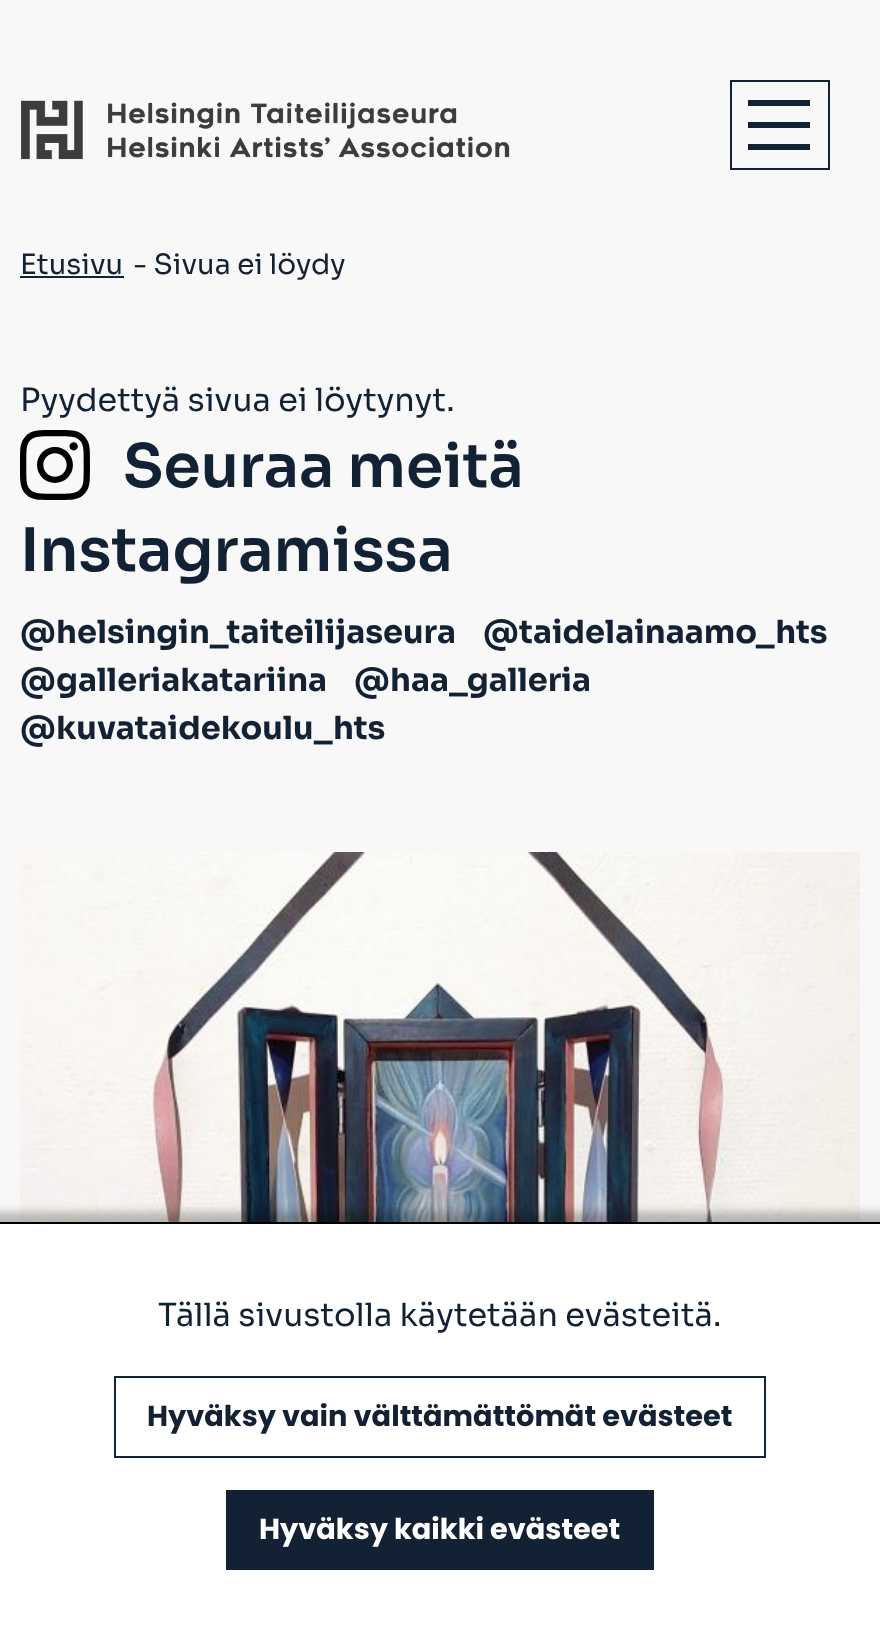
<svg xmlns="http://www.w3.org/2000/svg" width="880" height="1633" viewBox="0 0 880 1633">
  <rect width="100%" height="100%" fill="rgb(248,248,248)"/>
  <image x="21" y="100" width="489" height="60" href="pic1.png"/>
  <rect x="731" y="81" width="98" height="88" fill="none" stroke="rgb(18,33,51)" stroke-width="2"/>
  <rect x="748" y="100" width="62" height="6" fill="rgb(18,33,51)"/>
  <rect x="748" y="122" width="62" height="6" fill="rgb(18,33,51)"/>
  <rect x="748" y="144" width="62" height="6" fill="rgb(18,33,51)"/>
  <text x="20" y="274" font-family="Sora" font-size="28" fill="rgb(18,33,51)">Etusivu</text>
  <rect x="20" y="276" width="104" height="2" fill="rgb(18,33,51)"/>
  <text x="133" y="274" font-family="Sora" font-size="28" fill="rgb(18,33,51)">- Sivua ei löydy</text>
  <text x="20" y="411" font-family="Sora" font-size="32" fill="rgb(18,33,51)">Pyydettyä sivua ei löytynyt.</text>
  <image x="20" y="430" width="70" height="70" href="pic2.png"/>
  <g font-family="Sora" font-size="60" font-weight="600" fill="rgb(18,33,51)">
    <text x="123" y="487">Seuraa meitä</text>
    <text x="20" y="571">Instagramissa</text>
  </g>
  <g font-family="Sora" font-size="32" font-weight="bold" fill="rgb(18,33,51)">
    <text x="20" y="643">@helsingin_taiteilijaseura</text>
    <text x="483" y="643">@taidelainaamo_hts</text>
    <text x="20" y="691">@galleriakatariina</text>
    <text x="354" y="691">@haa_galleria</text>
    <text x="20" y="739">@kuvataidekoulu_hts</text>
  </g>
  <image x="20" y="852" width="840" height="370" href="pic3.png"/>
  <rect x="-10" y="1212" width="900" height="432" fill="rgba(0,0,0,0.25)" filter="blur(5px)"/>
  <rect x="0" y="1224" width="880" height="409" fill="rgb(255,255,255)"/>
  <rect x="0" y="1222" width="880" height="2" fill="rgb(0,0,0)"/>
  <text x="158" y="1326" font-family="Sora" font-size="32" fill="rgb(18,33,51)">Tällä sivustolla käytetään evästeitä.</text>
  <rect x="115" y="1377" width="650" height="80" fill="none" stroke="rgb(18,33,51)" stroke-width="2"/>
  <text x="147" y="1426" font-family="Poppins" font-size="28.8" font-weight="bold" fill="rgb(18,33,51)">Hyväksy vain välttämättömät evästeet</text>
  <rect x="226" y="1490" width="428" height="80" fill="rgb(18,33,51)"/>
  <text x="259" y="1539" font-family="Poppins" font-size="28.8" font-weight="bold" fill="rgb(255,255,255)">Hyväksy kaikki evästeet</text>
</svg>
